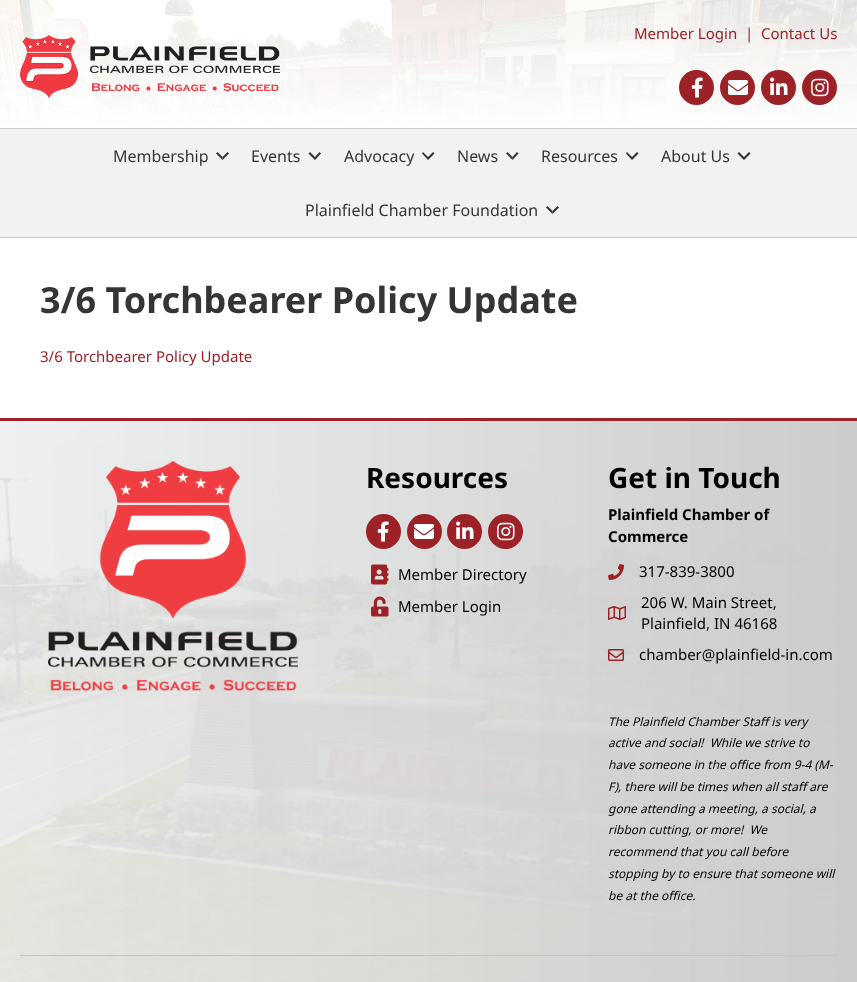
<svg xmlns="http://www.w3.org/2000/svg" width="857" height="982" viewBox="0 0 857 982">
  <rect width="100%" height="100%" fill="rgb(242,242,242)"/>
  <image x="0" y="0" width="857" height="128" href="pic1.png"/>
  <image x="20" y="35" width="260" height="63" href="pic2.png"/>
  <g font-family="Noto Sans" font-size="15" fill="rgb(156,34,40)">
    <text x="634" y="39">Member Login</text>
    <text x="745" y="39">|</text>
    <text x="761" y="39">Contact Us</text>
  </g>
  <circle cx="696.5" cy="87.5" r="17.5" fill="rgb(156,34,40)"/>
  <image x="691" y="77" width="12" height="21" href="pic3.png"/>
  <circle cx="737.5" cy="87.5" r="17.5" fill="rgb(156,34,40)"/>
  <image x="728" y="80" width="20" height="15" href="pic4.png"/>
  <circle cx="778.5" cy="87.5" r="17.5" fill="rgb(156,34,40)"/>
  <image x="770" y="77" width="18" height="18" href="pic5.png"/>
  <circle cx="819.5" cy="87.5" r="17.5" fill="rgb(156,34,40)"/>
  <image x="811" y="78" width="18" height="19" href="pic6.png"/>
  <rect x="0" y="128" width="857" height="1" fill="rgb(203,203,203)"/>
  <rect x="0" y="237" width="857" height="1" fill="rgb(203,203,203)"/>
  <text x="113" y="162" font-family="Noto Sans" font-size="16" fill="rgb(53,53,53)">Membership</text>
  <path d="M229 153.5L222.5 160V157L227.5 152Z" fill="rgb(53,53,53)"/>
  <path d="M222.5 160L216 153.5L217.5 152L222.5 157Z" fill="rgba(0,0,0,0.78)"/>
  <text x="251" y="162" font-family="Noto Sans" font-size="16" fill="rgb(53,53,53)">Events</text>
  <path d="M321 153.5L315 160V157L319.5 152ZM315 160L308.5 153.5L310 152L315 157Z" fill="rgb(53,53,53)"/>
  <text x="344" y="162" font-family="Noto Sans" font-size="16" fill="rgb(53,53,53)">Advocacy</text>
  <path d="M434.5 153.5L428 160V157L433 152ZM428 160L422 153.5L423 152L428 157Z" fill="rgb(53,53,53)"/>
  <text x="457" y="162" font-family="Noto Sans" font-size="16" fill="rgb(53,53,53)">News</text>
  <path d="M518.5 153.5L512.5 160V157L517 152Z" fill="rgb(53,53,53)"/>
  <path d="M512.5 160L506 153.5L507.5 152L512.5 157Z" fill="rgba(0,0,0,0.78)"/>
  <text x="541" y="162" font-family="Noto Sans" font-size="16" fill="rgb(53,53,53)">Resources</text>
  <path d="M638.5 153.5L632 160V157L637 152ZM632 160L626 153.5L627 152L632 157Z" fill="rgb(53,53,53)"/>
  <text x="661" y="162" font-family="Noto Sans" font-size="16" fill="rgb(53,53,53)">About Us</text>
  <path d="M750.5 153.5L744 160V157L749 152ZM744 160L737.5 153.5L739 152L744 157Z" fill="rgb(53,53,53)"/>
  <text x="305" y="216" font-family="Noto Sans" font-size="16" fill="rgb(53,53,53)">Plainfield Chamber Foundation</text>
  <path d="M559 207.5L552.5 214V211L557.5 206Z" fill="rgb(53,53,53)"/>
  <path d="M552.5 214L546 207.5L547.5 206L552.5 211Z" fill="rgba(0,0,0,0.78)"/>
  <rect x="0" y="238" width="857" height="180" fill="rgb(255,255,255)"/>
  <text x="40" y="313" font-family="Noto Sans" font-size="36" font-weight="bold" fill="rgb(53,53,53)">3/6 Torchbearer Policy Update</text>
  <text x="40" y="362" font-family="Noto Sans" font-size="15" fill="rgb(156,34,40)">3/6 Torchbearer Policy Update</text>
  <image x="0" y="421" width="857" height="561" href="pic7.png"/>
  <rect x="0" y="418" width="857" height="3" fill="rgb(156,34,40)"/>
  <image x="48" y="461" width="250" height="230" href="pic8.png"/>
  <text x="366" y="488" font-family="Noto Sans" font-size="28" font-weight="bold" fill="rgb(0,0,0)">Resources</text>
  <circle cx="383.5" cy="531.5" r="17.5" fill="rgb(156,34,40)"/>
  <image x="377" y="521" width="12" height="21" href="pic3.png"/>
  <circle cx="424.5" cy="531.5" r="17.5" fill="rgb(156,34,40)"/>
  <image x="414" y="524" width="20" height="15" href="pic4.png"/>
  <circle cx="464.5" cy="531.5" r="17.5" fill="rgb(156,34,40)"/>
  <image x="456" y="521" width="18" height="18" href="pic5.png"/>
  <circle cx="505.5" cy="531.5" r="17.5" fill="rgb(156,34,40)"/>
  <image x="497" y="522" width="18" height="19" href="pic6.png"/>
  <image x="371" y="564" width="18" height="21" href="pic9.png"/>
  <text x="398" y="580" font-family="Noto Sans" font-size="15" fill="rgb(0,0,0)">Member Directory</text>
  <image x="371" y="596" width="18" height="21" href="pic10.png"/>
  <text x="398" y="612" font-family="Noto Sans" font-size="15" fill="rgb(0,0,0)">Member Login</text>
  <text x="608" y="488" font-family="Noto Sans" font-size="28" font-weight="bold" fill="rgb(0,0,0)">Get in Touch</text>
  <g font-family="Noto Sans" font-size="15" font-weight="bold" fill="rgb(0,0,0)">
    <text>
      <tspan x="608" y="520">Plainfield Chamber of</tspan>
      <tspan x="608" y="542">Commerce</tspan>
    </text>
  </g>
  <image x="608" y="564" width="16" height="16" href="pic11.png"/>
  <text x="639" y="577" font-family="Noto Sans" font-size="15" fill="rgb(0,0,0)">317-839-3800</text>
  <image x="608" y="606" width="18" height="14" href="pic12.png"/>
  <g font-family="Noto Sans" font-size="15" fill="rgb(0,0,0)">
    <text>
      <tspan x="641" y="608">206 W. Main Street,</tspan>
      <tspan x="641" y="629">Plainfield, IN 46168</tspan>
    </text>
  </g>
  <image x="608" y="649" width="16" height="12" href="pic13.png"/>
  <text x="639" y="660" font-family="Noto Sans" font-size="15" fill="rgb(0,0,0)">chamber@plainfield-in.com</text>
  <g font-family="Noto Sans" font-size="12" font-style="italic" fill="rgb(0,0,0)">
    <text xml:space="preserve"><tspan x="608" y="726">The Plainfield Chamber Staff is very</tspan><tspan x="608" y="747">active and social!  While we strive to</tspan><tspan x="608" y="769">have someone in the office from 9-4 (M-</tspan><tspan x="608" y="791">F), there will be times when all staff are</tspan><tspan x="608" y="813">gone attending a meeting, a social, a</tspan><tspan x="608" y="834">ribbon cutting, or more!  We</tspan><tspan x="608" y="856">recommend that you call before</tspan><tspan x="608" y="878">stopping by to ensure that someone will</tspan><tspan x="608" y="900">be at the office.</tspan></text>
  </g>
  <rect x="20" y="955" width="817" height="1" fill="rgb(194,194,194)"/>
</svg>
